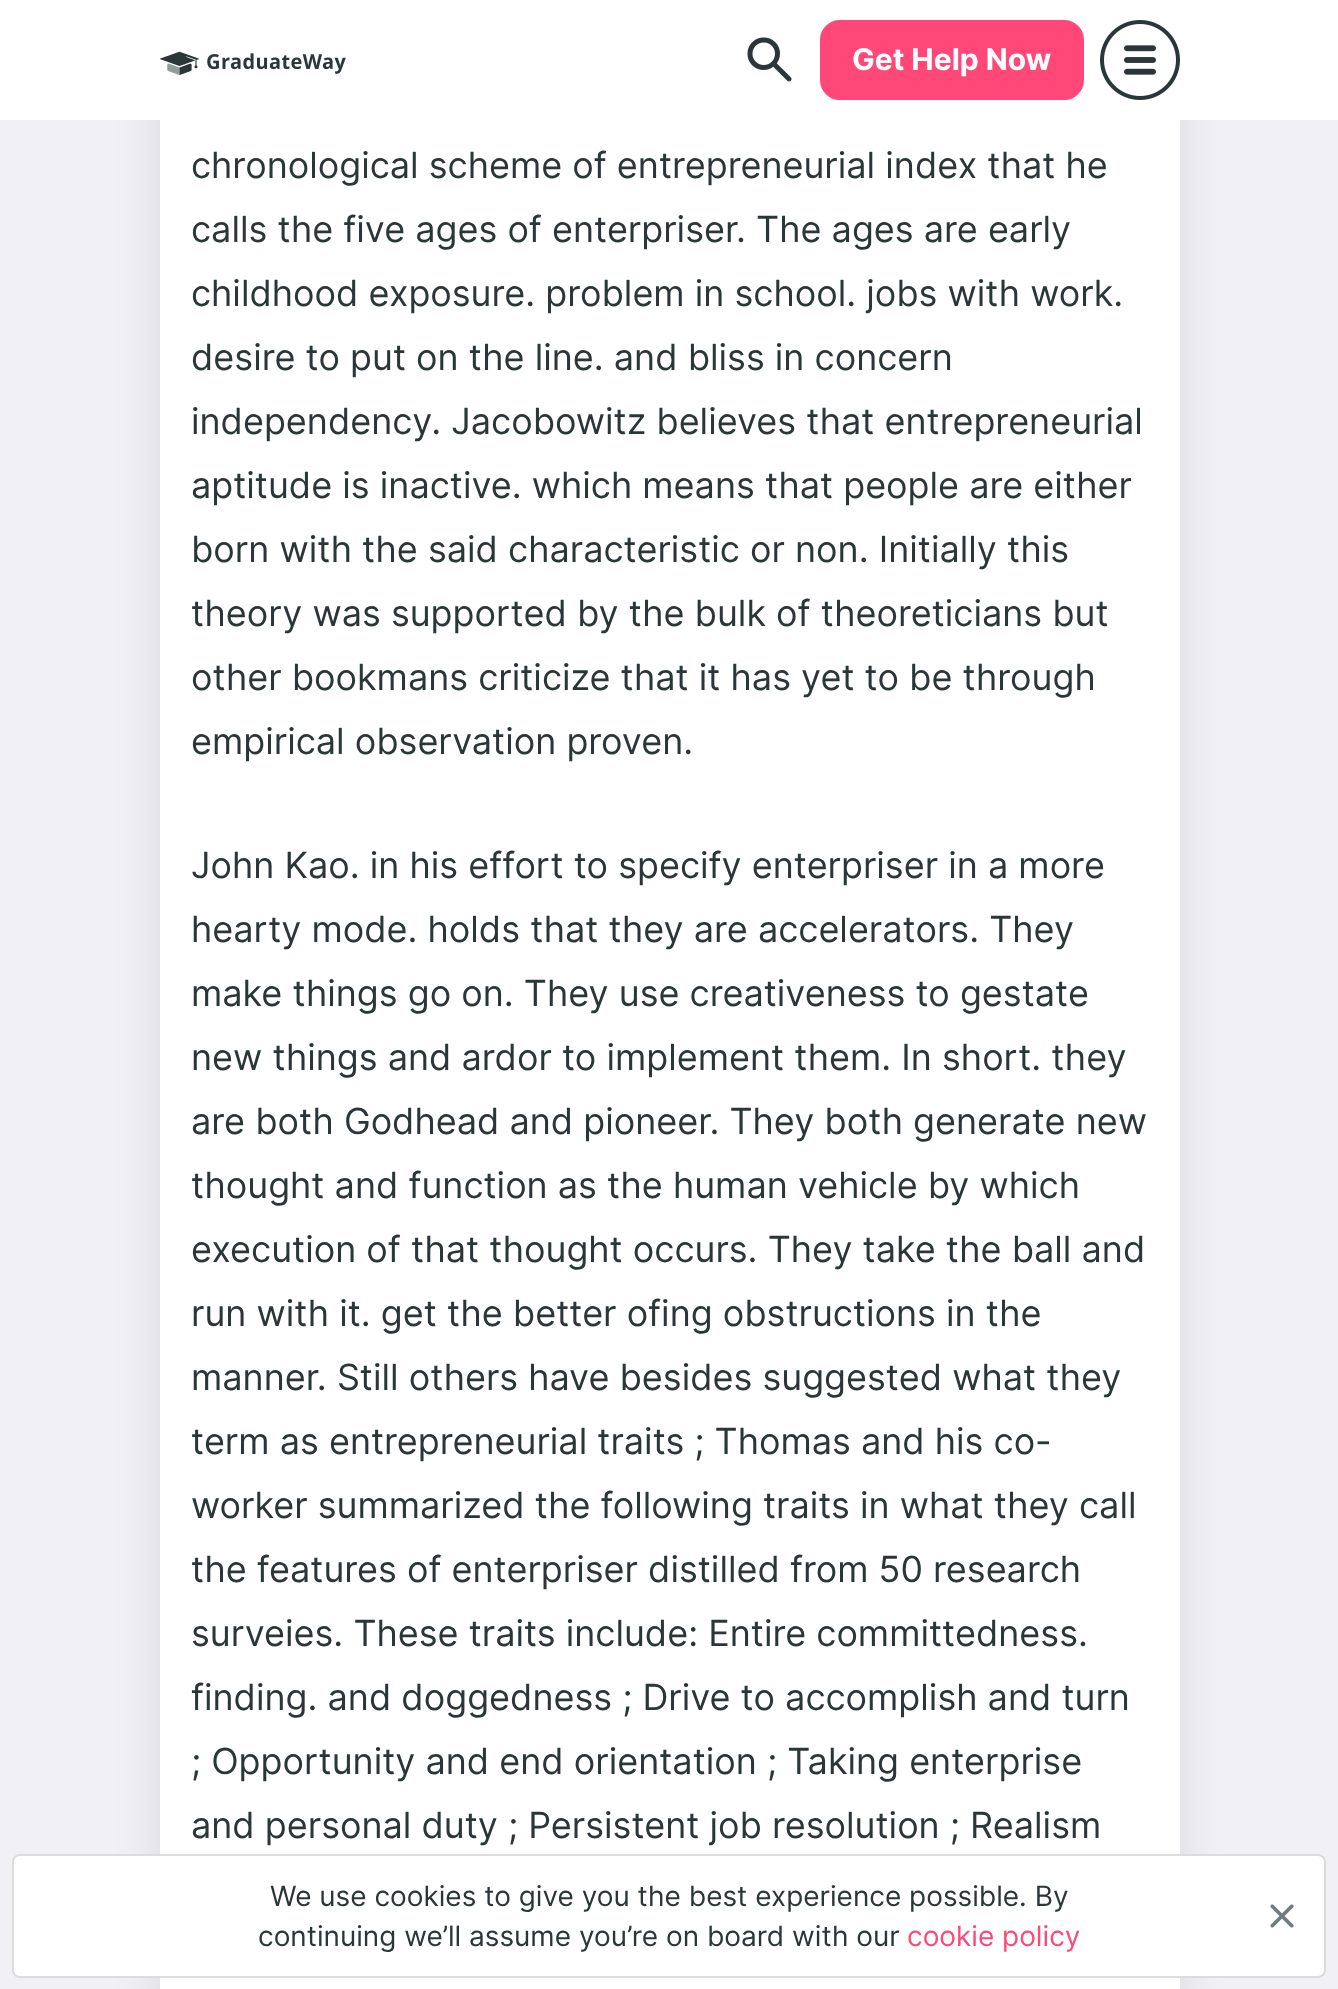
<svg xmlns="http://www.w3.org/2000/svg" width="1338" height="1989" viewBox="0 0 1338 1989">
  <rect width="100%" height="100%" fill="rgb(240,240,245)"/>
  <rect x="162" y="-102" width="1016" height="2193" rx="30" fill="rgba(0,0,0,0.1)" filter="blur(24px)"/>
  <rect x="0" y="0" width="1338" height="120" fill="rgb(255,255,255)"/>
  <image x="160" y="51" width="186" height="25" href="pic1.png"/>
  <image x="747" y="37" width="45" height="45" href="pic2.png"/>
  <rect x="822" y="22" width="260" height="76" rx="18" fill="rgb(255,71,120)" stroke="rgb(255,71,120)" stroke-width="4"/>
  <text x="852" y="70" font-family="Inter" font-size="30" font-weight="bold" fill="rgb(255,255,255)">Get Help Now</text>
  <image x="1100" y="20" width="80" height="80" href="pic3.png"/>
  <rect x="160" y="120" width="1020" height="1869" fill="rgb(255,255,255)"/>
  <g font-family="Inter" font-size="36" fill="rgb(43,54,56)">
    <text>
      <tspan x="191" y="178">chronological scheme of entrepreneurial index that he</tspan>
      <tspan x="191" y="242">calls the five ages of enterpriser. The ages are early</tspan>
      <tspan x="191" y="306">childhood exposure. problem in school. jobs with work.</tspan>
      <tspan x="191" y="370">desire to put on the line. and bliss in concern</tspan>
      <tspan x="191" y="434">independency. Jacobowitz believes that entrepreneurial</tspan>
      <tspan x="191" y="498">aptitude is inactive. which means that people are either</tspan>
      <tspan x="191" y="562">born with the said characteristic or non. Initially this</tspan>
      <tspan x="191" y="626">theory was supported by the bulk of theoreticians but</tspan>
      <tspan x="191" y="690">other bookmans criticize that it has yet to be through</tspan>
      <tspan x="191" y="754">empirical observation proven.</tspan>
    </text>
    <text>
      <tspan x="191" y="878">John Kao. in his effort to specify enterpriser in a more</tspan>
      <tspan x="191" y="942">hearty mode. holds that they are accelerators. They</tspan>
      <tspan x="191" y="1006">make things go on. They use creativeness to gestate</tspan>
      <tspan x="191" y="1070">new things and ardor to implement them. In short. they</tspan>
      <tspan x="191" y="1134">are both Godhead and pioneer. They both generate new</tspan>
      <tspan x="191" y="1198">thought and function as the human vehicle by which</tspan>
      <tspan x="191" y="1262">execution of that thought occurs. They take the ball and</tspan>
      <tspan x="191" y="1326">run with it. get the better ofing obstructions in the</tspan>
      <tspan x="191" y="1390">manner. Still others have besides suggested what they</tspan>
      <tspan x="191" y="1454">term as entrepreneurial traits ; Thomas and his co-</tspan>
      <tspan x="191" y="1518">worker summarized the following traits in what they call</tspan>
      <tspan x="191" y="1582">the features of enterpriser distilled from 50 research</tspan>
      <tspan x="191" y="1646">surveies. These traits include: Entire committedness.</tspan>
      <tspan x="191" y="1710">finding. and doggedness ; Drive to accomplish and turn</tspan>
      <tspan x="191" y="1774">; Opportunity and end orientation ; Taking enterprise</tspan>
      <tspan x="191" y="1838">and personal duty ; Persistent job resolution ; Realism</tspan>
    </text>
  </g>
  <rect x="13" y="1855" width="1312" height="122" rx="7" fill="rgb(255,255,255)" stroke="rgb(220,220,220)" stroke-width="2"/>
  <g font-family="Inter" font-size="28" fill="rgb(43,54,56)">
    <text x="270" y="1906">We use cookies to give you the best experience possible. By</text>
    <text x="258" y="1946">continuing we’ll assume you’re on board with our</text>
  </g>
  <text x="907" y="1946" font-family="Inter" font-size="28" fill="rgb(255,71,120)">cookie policy</text>
  <image x="1270" y="1904" width="24" height="24" href="pic4.png"/>
</svg>
